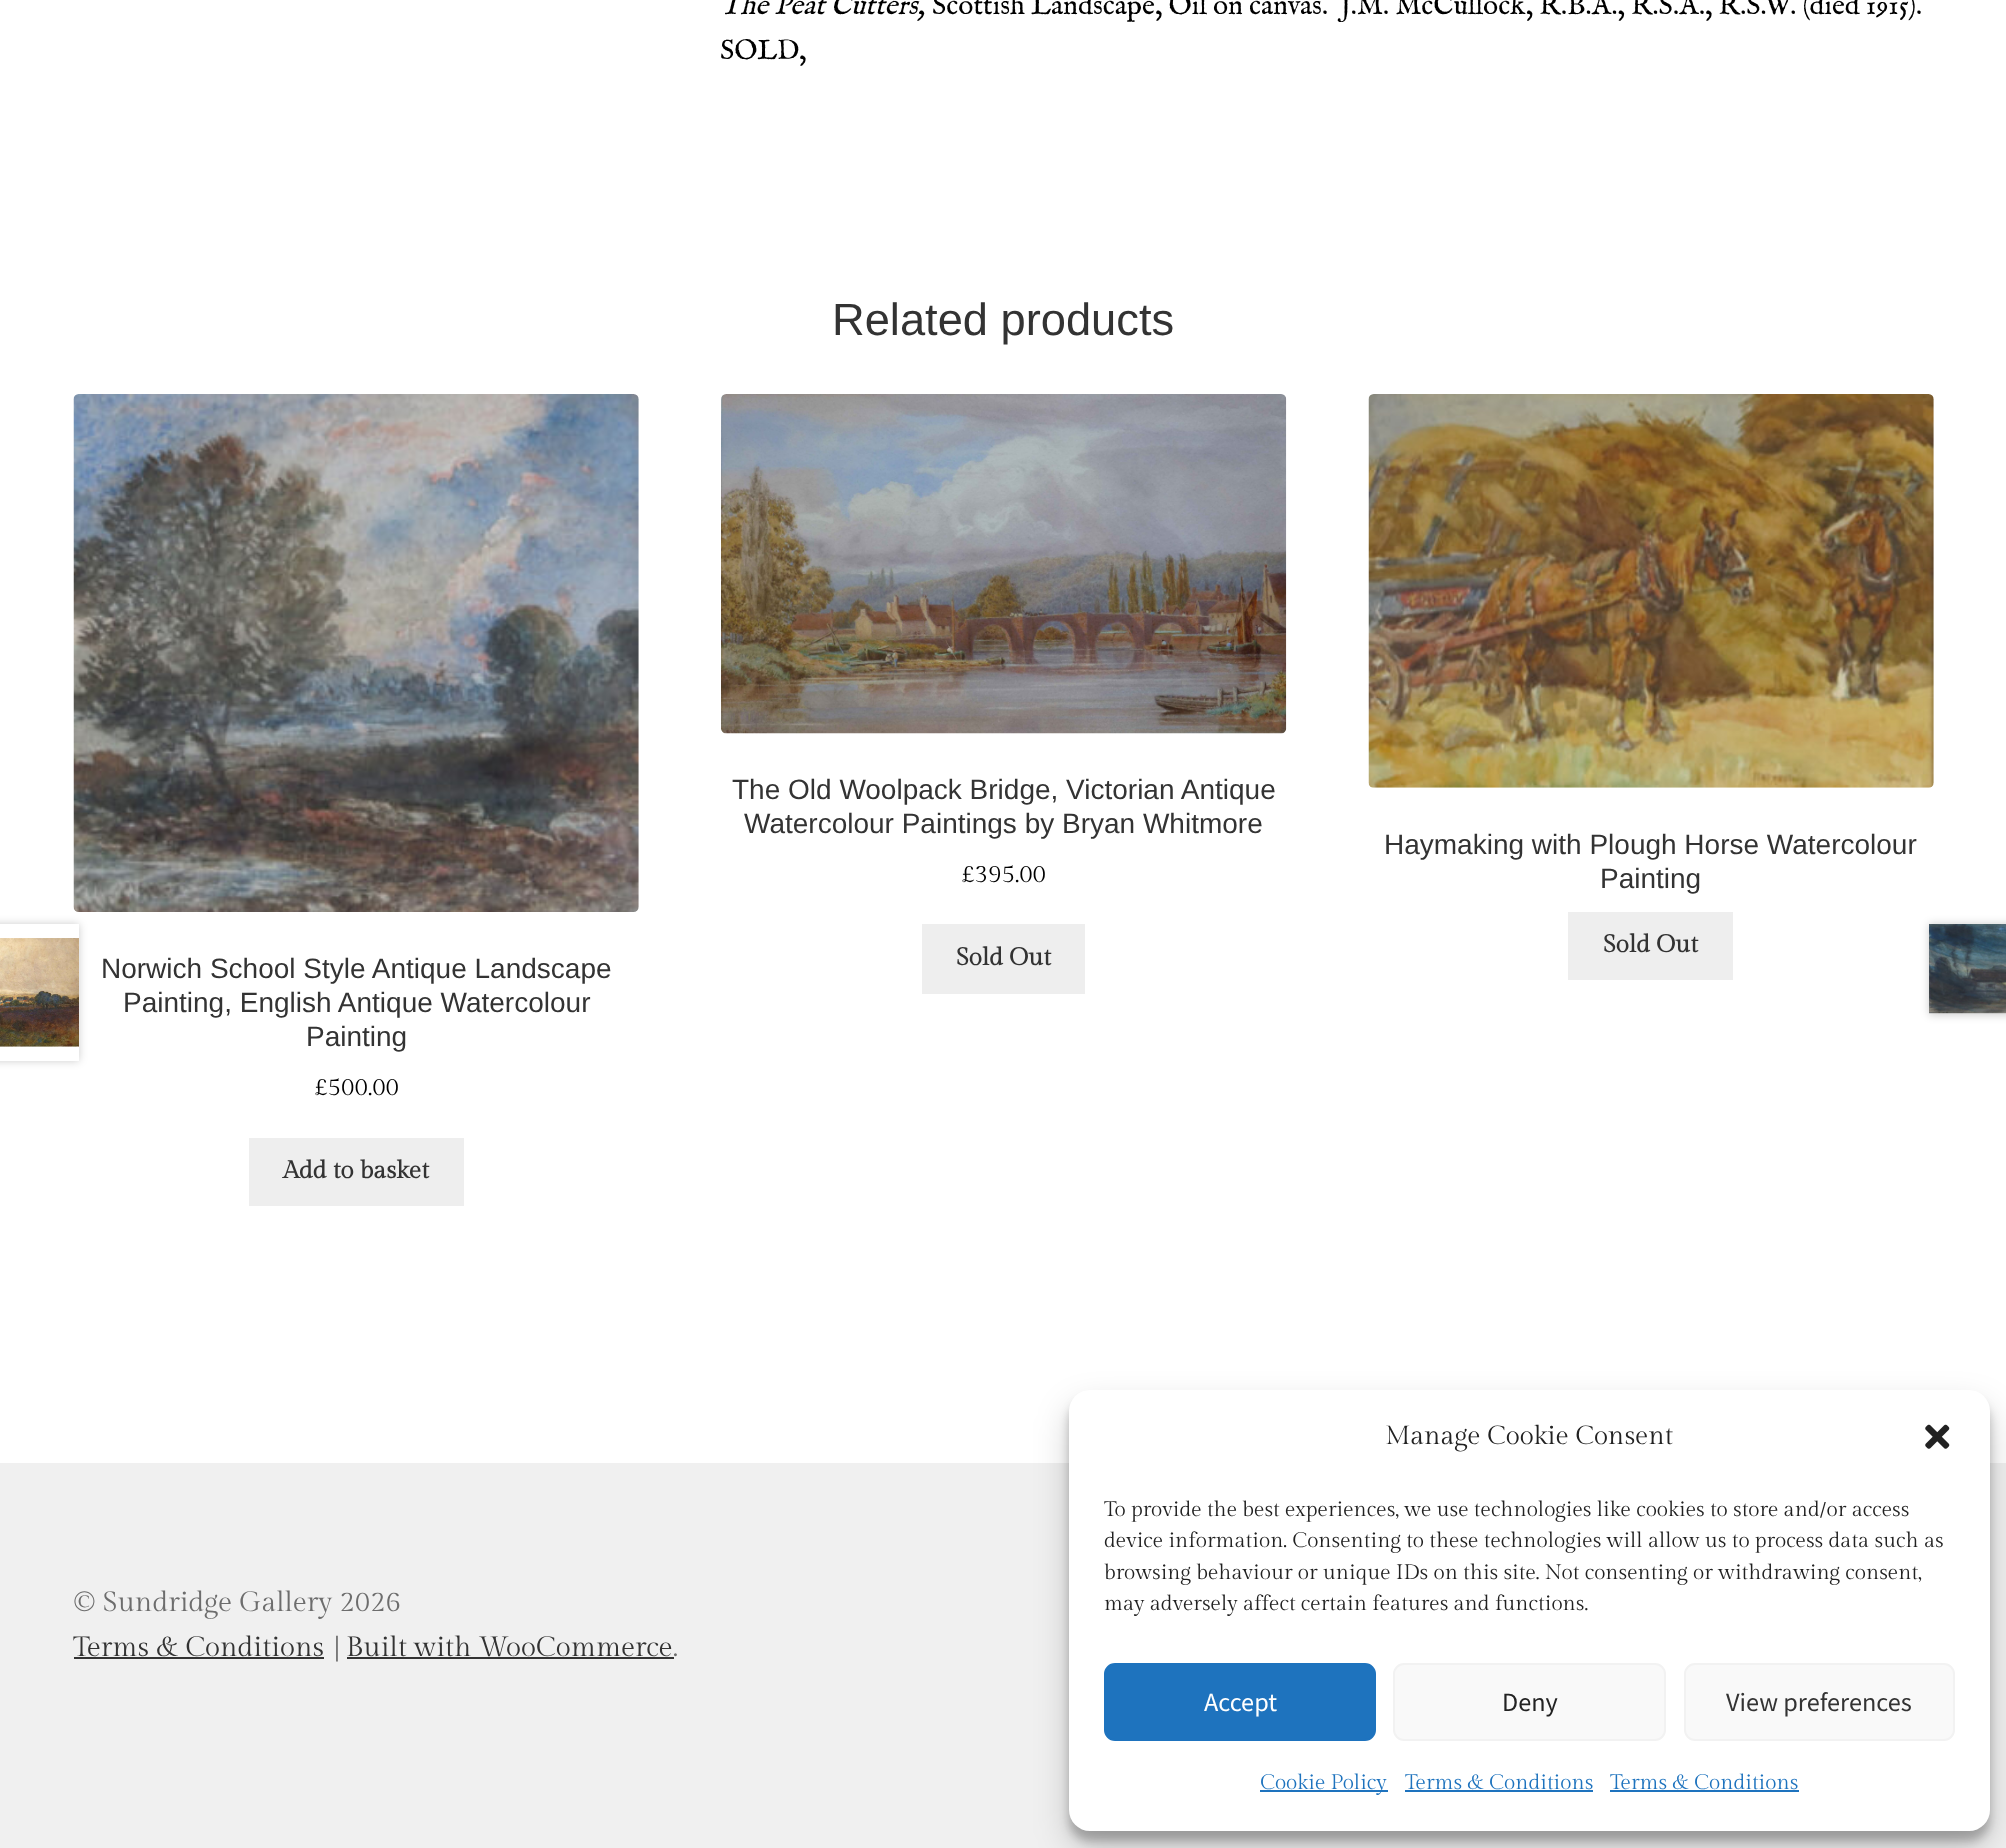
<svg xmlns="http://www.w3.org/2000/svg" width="2006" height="1848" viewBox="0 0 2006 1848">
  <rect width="100%" height="100%" fill="rgb(255,255,255)"/>
  <text x="720" y="14" font-family="IM FELL English" font-size="28" font-style="italic" fill="rgb(0,0,0)">The Peat Cutters,</text>
  <g font-family="IM FELL English" font-size="28" fill="rgb(0,0,0)">
    <text x="932" y="14" xml:space="preserve">Scottish Landscape, Oil on canvas.  J.M. McCullock, R.B.A., R.S.A., R.S.W. (died 1915).</text>
    <text x="720" y="59">SOLD,</text>
  </g>
  <text x="832" y="335" font-family="Liberation Sans" font-size="45.25" fill="rgb(51,51,51)">Related products</text>
  <image x="721" y="394" width="566" height="340" href="pic1.png"/>
  <g font-family="Liberation Sans" font-size="28" fill="rgb(51,51,51)">
    <text x="732" y="799">The Old Woolpack Bridge, Victorian Antique</text>
    <text x="744" y="833">Watercolour Paintings by Bryan Whitmore</text>
  </g>
  <text x="961" y="882" font-family="Gilda Display" font-size="24.5" fill="rgb(0,0,0)">£395.00</text>
  <rect x="922" y="924" width="163" height="70" fill="rgb(238,238,238)"/>
  <text x="956" y="965" font-family="Gilda Display" font-size="24.5" font-weight="bold" fill="rgb(51,51,51)">Sold Out</text>
  <image x="1368" y="394" width="566" height="394" href="pic2.png"/>
  <g font-family="Liberation Sans" font-size="28" fill="rgb(51,51,51)">
    <text x="1384" y="854">Haymaking with Plough Horse Watercolour</text>
    <text x="1600" y="888">Painting</text>
  </g>
  <rect x="1568" y="912" width="165" height="68" fill="rgb(238,238,238)"/>
  <text x="1603" y="952" font-family="Gilda Display" font-size="24.5" font-weight="bold" fill="rgb(51,51,51)">Sold Out</text>
  <image x="73" y="394" width="566" height="518" href="pic3.png"/>
  <g font-family="Liberation Sans" font-size="28" fill="rgb(51,51,51)">
    <text x="101" y="978">Norwich School Style Antique Landscape</text>
    <text x="123" y="1012">Painting, English Antique Watercolour</text>
    <text x="306" y="1046">Painting</text>
  </g>
  <text x="314" y="1095" font-family="Gilda Display" font-size="24.5" fill="rgb(0,0,0)">£500.00</text>
  <rect x="249" y="1138" width="215" height="68" fill="rgb(238,238,238)"/>
  <text x="283" y="1178" font-family="Gilda Display" font-size="24.5" font-weight="bold" fill="rgb(51,51,51)">Add to basket</text>
  <rect x="-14" y="924" width="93" height="137" fill="rgba(0,0,0,0.2)" filter="blur(4.5px)"/>
  <rect x="0" y="924" width="79" height="137" fill="rgb(255,255,255)"/>
  <image x="0" y="938" width="79" height="109" href="pic4.png"/>
  <rect x="1929" y="924" width="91" height="91" fill="rgba(0,0,0,0.2)" filter="blur(4.5px)"/>
  <image x="1929" y="924" width="77" height="90" href="pic5.png"/>
  <rect x="0" y="1463" width="2006" height="385" fill="rgb(240,240,240)"/>
  <text x="73" y="1611" font-family="Gilda Display" font-size="28" fill="rgb(109,109,109)">© Sundridge Gallery 2026</text>
  <text x="73" y="1656" font-family="Gilda Display" font-size="28" fill="rgb(51,51,51)">Terms &amp; Conditions</text>
  <rect x="74" y="1657" width="250" height="2" fill="rgb(51,51,51)"/>
  <text x="334" y="1656" font-family="Gilda Display" font-size="28" fill="rgb(109,109,109)">|</text>
  <text x="346" y="1656" font-family="Gilda Display" font-size="28" fill="rgb(51,51,51)">Built with WooCommerce</text>
  <rect x="347" y="1657" width="327" height="2" fill="rgb(51,51,51)"/>
  <text x="673" y="1656" font-family="Gilda Display" font-size="28" fill="rgb(109,109,109)">.</text>
  <rect x="1069" y="1400" width="921" height="441" rx="21" fill="rgba(0,0,0,0.23)" filter="blur(5px)"/>
  <rect x="1069" y="1407" width="921" height="441" rx="21" fill="rgba(0,0,0,0.19)" filter="blur(17.5px)"/>
  <rect x="1069" y="1390" width="921" height="441" rx="21" fill="rgb(255,255,255)"/>
  <text x="1385" y="1444" font-family="Gilda Display" font-size="26.25" fill="rgb(34,34,34)">Manage Cookie Consent</text>
  <image x="1925" y="1424" width="25" height="25" href="pic6.png"/>
  <g font-family="Gilda Display" font-size="21" fill="rgb(34,34,34)">
    <text>
      <tspan x="1104" y="1516">To provide the best experiences, we use technologies like cookies to store and/or access</tspan>
      <tspan x="1104" y="1547">device information. Consenting to these technologies will allow us to process data such as</tspan>
      <tspan x="1104" y="1579">browsing behaviour or unique IDs on this site. Not consenting or withdrawing consent,</tspan>
      <tspan x="1104" y="1610">may adversely affect certain features and functions.</tspan>
    </text>
  </g>
  <rect x="1105" y="1664" width="270" height="76" rx="10" fill="rgb(30,115,190)" stroke="rgb(30,115,190)" stroke-width="2"/>
  <text x="1204" y="1711" font-family="Source Sans Pro" font-size="26.25" fill="rgb(255,255,255)">Accept</text>
  <rect x="1394" y="1664" width="271" height="76" rx="10" fill="rgb(249,249,249)" stroke="rgb(242,242,242)" stroke-width="2"/>
  <text x="1502" y="1711" font-family="Source Sans Pro" font-size="26.25" fill="rgb(34,34,34)">Deny</text>
  <rect x="1685" y="1664" width="269" height="76" rx="10" fill="rgb(249,249,249)" stroke="rgb(242,242,242)" stroke-width="2"/>
  <text x="1726" y="1711" font-family="Source Sans Pro" font-size="26.25" fill="rgb(51,51,51)">View preferences</text>
  <rect x="1260" y="1790" width="128" height="2" fill="rgb(30,115,190)"/>
  <g font-family="Gilda Display" font-size="21" fill="rgb(30,115,190)">
    <text x="1260" y="1789">Cookie Policy</text>
    <text x="1405" y="1789">Terms &amp; Conditions</text>
  </g>
  <rect x="1405" y="1790" width="188" height="2" fill="rgb(30,115,190)"/>
  <text x="1610" y="1789" font-family="Gilda Display" font-size="21" fill="rgb(30,115,190)">Terms &amp; Conditions</text>
  <rect x="1610" y="1790" width="189" height="2" fill="rgb(30,115,190)"/>
</svg>
